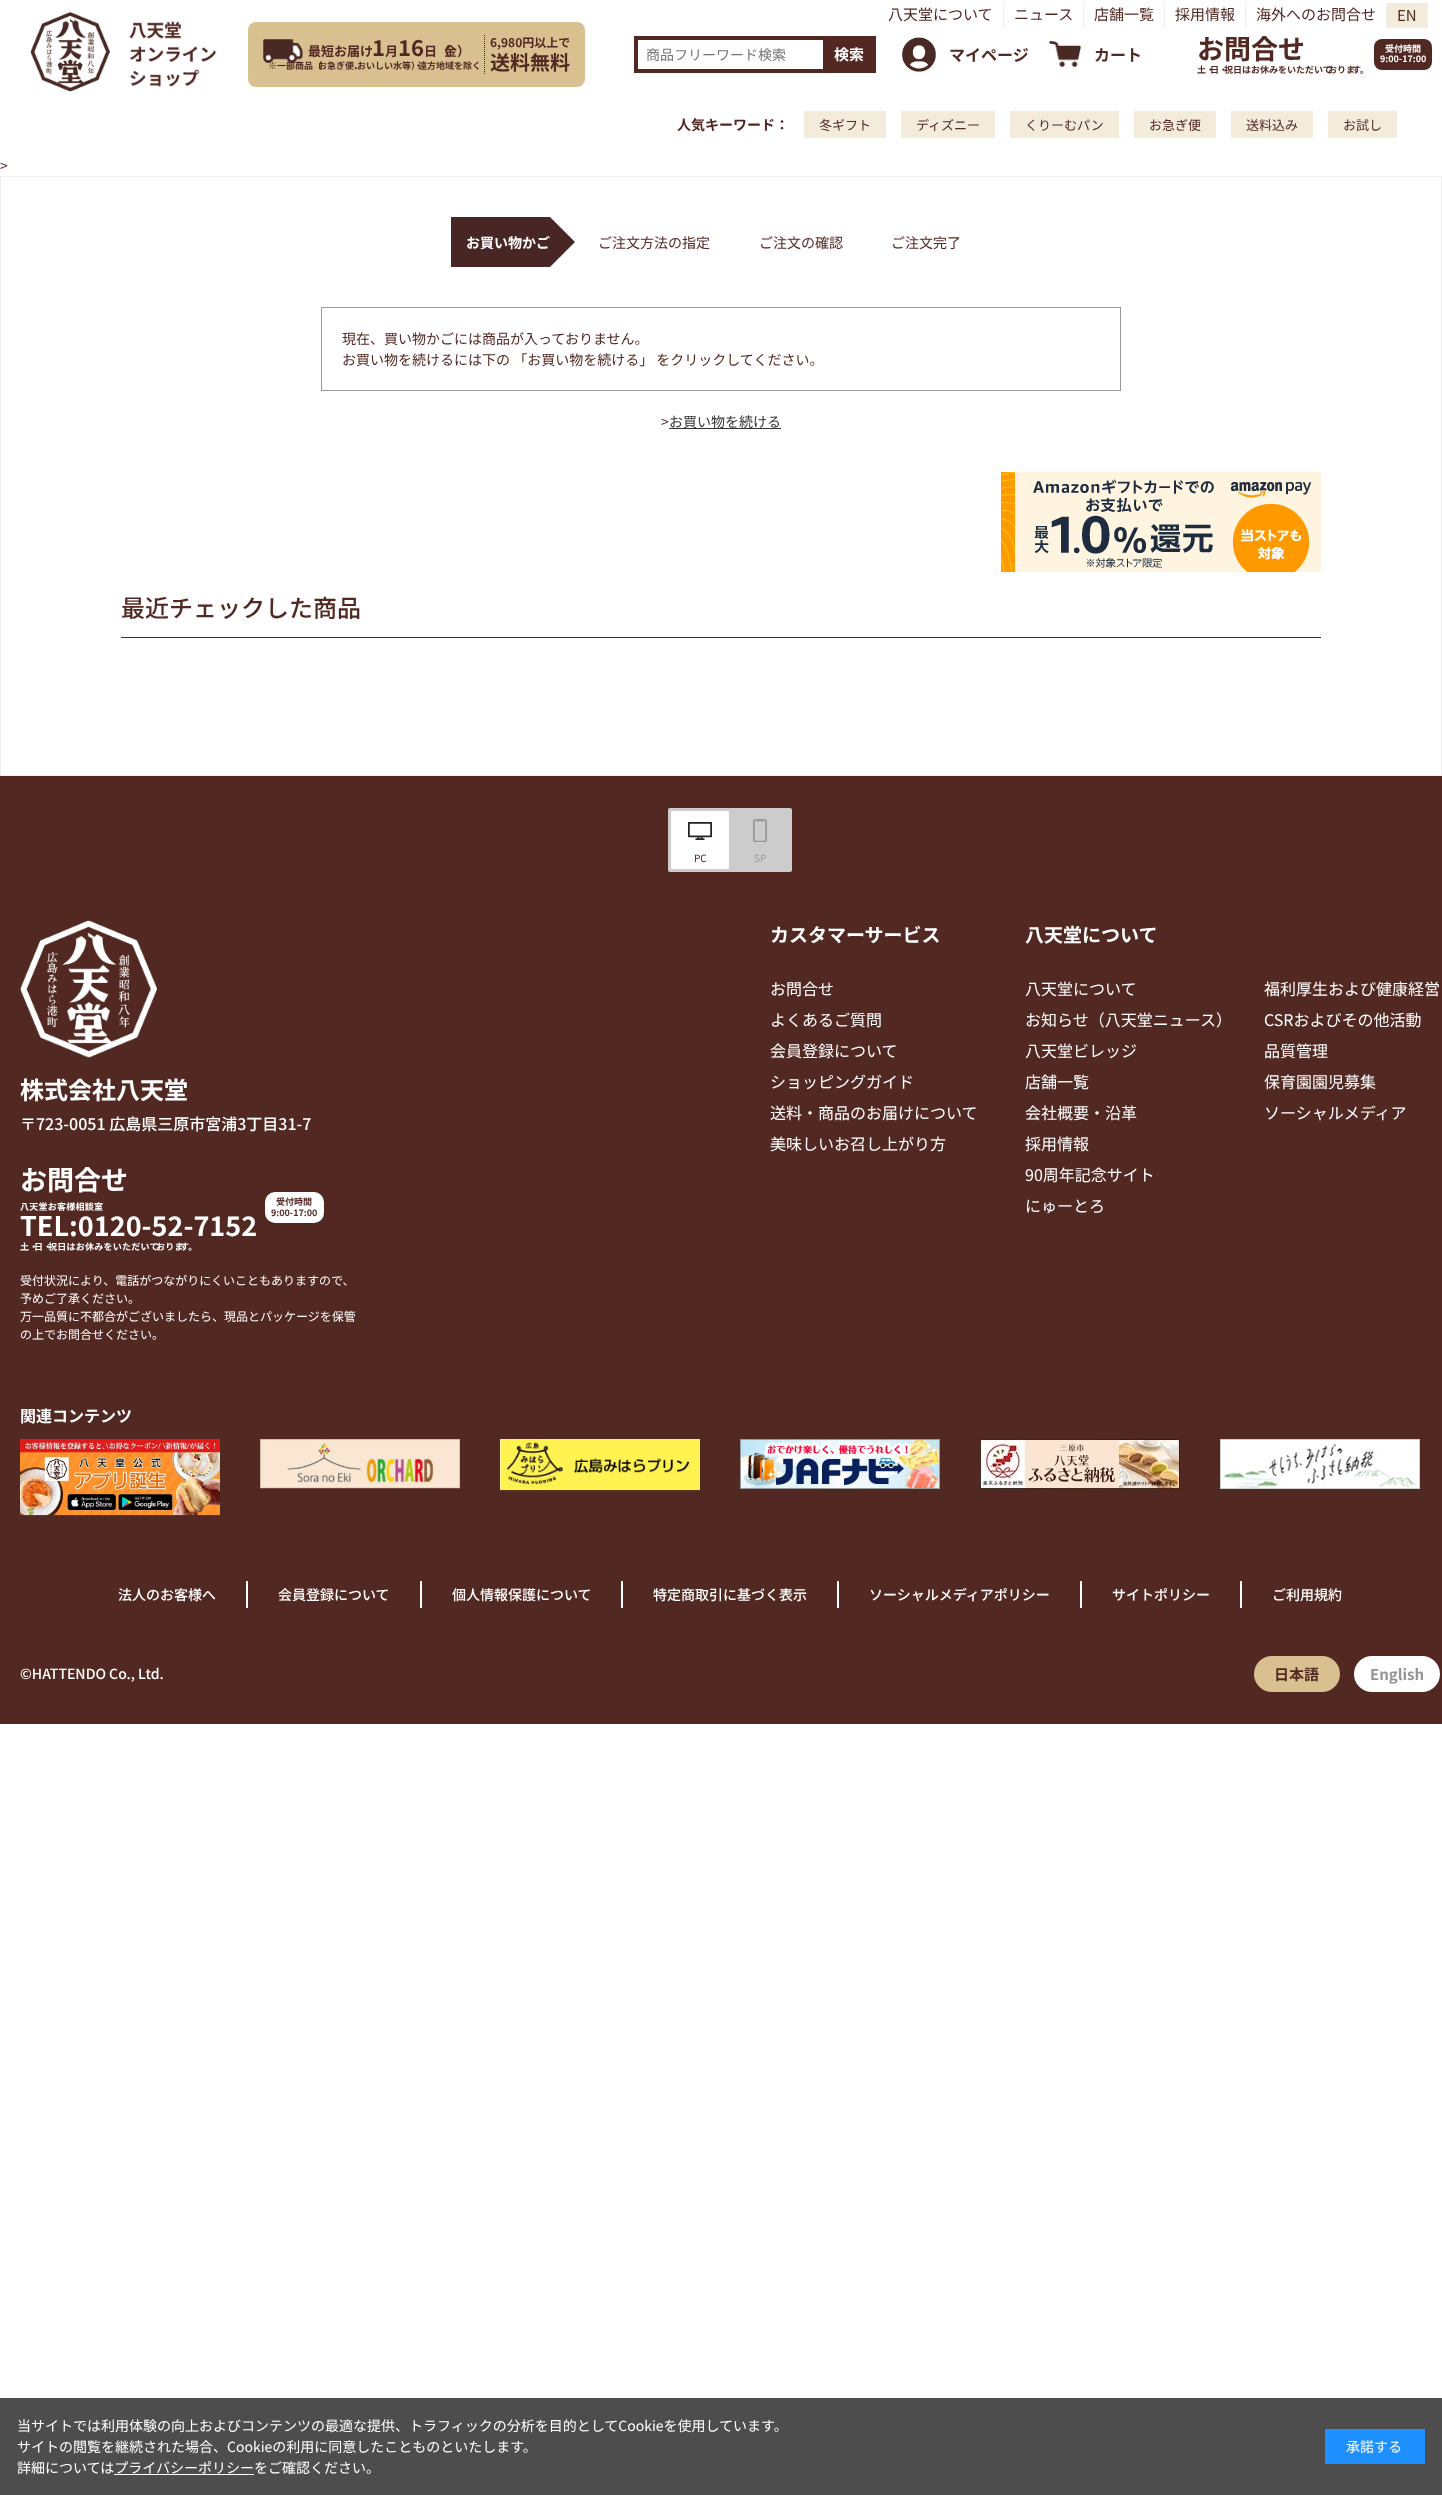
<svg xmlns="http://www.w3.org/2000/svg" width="1442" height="2495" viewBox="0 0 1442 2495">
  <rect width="100%" height="100%" fill="rgb(255,255,255)"/>
  <rect x="1003" y="3" width="1" height="25" fill="rgb(238,238,238)"/>
  <text x="888" y="20" font-family="Noto Sans JP" font-size="15" fill="rgb(82,40,34)">八天堂について</text>
  <rect x="1083" y="3" width="1" height="25" fill="rgb(238,238,238)"/>
  <text x="1014" y="20" font-family="Noto Sans JP" font-size="15" fill="rgb(82,40,34)">ニュース</text>
  <rect x="1164" y="3" width="1" height="25" fill="rgb(238,238,238)"/>
  <text x="1094" y="20" font-family="Noto Sans JP" font-size="15" fill="rgb(82,40,34)">店舗一覧</text>
  <rect x="1245" y="3" width="1" height="25" fill="rgb(238,238,238)"/>
  <text x="1175" y="20" font-family="Noto Sans JP" font-size="15" fill="rgb(82,40,34)">採用情報</text>
  <rect x="1386" y="3" width="1" height="25" fill="rgb(238,238,238)"/>
  <text x="1256" y="20" font-family="Noto Sans JP" font-size="15" fill="rgb(82,40,34)">海外へのお問合せ</text>
  <rect x="1387" y="4" width="40" height="23" fill="rgb(243,236,221)"/>
  <rect x="1387" y="3" width="41" height="1" fill="rgb(238,238,238)"/>
  <rect x="1427" y="3" width="1" height="25" fill="rgb(238,238,238)"/>
  <rect x="1387" y="27" width="41" height="1" fill="rgb(238,238,238)"/>
  <text x="1397" y="21" font-family="Noto Sans JP" font-size="15" fill="rgb(82,40,34)">EN</text>
  <image x="30" y="12" width="186" height="80" href="pic1.png"/>
  <rect x="248" y="22" width="337" height="65" rx="8" fill="rgb(216,192,144)"/>
  <image x="263" y="39" width="40" height="24" href="pic2.png"/>
  <text x="308" y="56" font-family="Noto Sans JP" font-size="13" font-weight="bold" fill="rgb(82,40,34)">最短お届け</text>
  <text x="372" y="56" font-family="Noto Sans JP" font-size="22" font-weight="bold" fill="rgb(82,40,34)">1</text>
  <text x="385" y="56" font-family="Noto Sans JP" font-size="13" font-weight="bold" fill="rgb(82,40,34)">月</text>
  <text x="398" y="56" font-family="Noto Sans JP" font-size="22" font-weight="bold" fill="rgb(82,40,34)">16</text>
  <text x="424" y="56" font-family="Noto Sans JP" font-size="13" font-weight="bold" fill="rgb(82,40,34)">日（</text>
  <text x="444" y="56" font-family="Noto Sans JP" font-size="13" font-weight="bold" fill="rgb(82,40,34)">金）</text>
  <text x="268" y="69" font-family="Noto Sans JP" font-size="9" font-weight="bold" fill="rgb(82,40,34)">※一部商品（</text>
  <text x="318" y="69" font-family="Noto Sans JP" font-size="9" font-weight="bold" fill="rgb(82,40,34)">お急ぎ便、</text>
  <text x="357" y="69" font-family="Noto Sans JP" font-size="9" font-weight="bold" fill="rgb(82,40,34)">おいしい水等）</text>
  <text x="414" y="69" font-family="Noto Sans JP" font-size="9" font-weight="bold" fill="rgb(82,40,34)">・</text>
  <text x="418" y="69" font-family="Noto Sans JP" font-size="9" font-weight="bold" fill="rgb(82,40,34)">遠方地域を除く</text>
  <path d="M484.5 35V74" fill="none" stroke="rgb(82,40,34)" stroke-dasharray="1 1"/>
  <text x="490" y="47" font-family="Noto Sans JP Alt" font-size="12" font-weight="bold" fill="rgb(82,40,34)">6,980円以上で</text>
  <text x="490" y="70" font-family="Noto Sans JP" font-size="20" font-weight="bold" fill="rgb(82,40,34)">送料無料</text>
  <rect x="634" y="36" width="189" height="4" fill="rgb(82,41,34)"/>
  <rect x="634" y="69" width="189" height="4" fill="rgb(82,41,34)"/>
  <rect x="634" y="36" width="4" height="37" fill="rgb(82,41,34)"/>
  <text x="646" y="60" font-family="Noto Sans JP" font-size="14" fill="rgb(117,117,117)">商品フリーワード検索</text>
  <rect x="823" y="36" width="53" height="37" fill="rgb(82,41,34)"/>
  <text x="834" y="60" font-family="Noto Sans JP" font-size="15" font-weight="bold" fill="rgb(255,255,255)">検索</text>
  <image x="902" y="37" width="34" height="35" href="pic3.png"/>
  <text x="949" y="61" font-family="Noto Sans JP" font-size="16" font-weight="bold" fill="rgb(82,40,34)">マイページ</text>
  <image x="1049" y="41" width="32" height="26" href="pic4.png"/>
  <text x="1094" y="61" font-family="Noto Sans JP" font-size="16" font-weight="bold" fill="rgb(82,40,34)">カート</text>
  <text x="1197" y="59" font-family="Noto Sans JP" font-size="27" font-weight="bold" fill="rgb(82,40,34)">お問合せ</text>
  <text x="1197" y="73" font-family="Noto Sans JP" font-size="9" font-weight="bold" fill="rgb(82,40,34)">土・</text>
  <text x="1210" y="73" font-family="Noto Sans JP" font-size="9" font-weight="bold" fill="rgb(82,40,34)">日・</text>
  <text x="1224" y="73" font-family="Noto Sans JP" font-size="9" font-weight="bold" fill="rgb(82,40,34)">祝日はお休みをいただいて</text>
  <text x="1328" y="73" font-family="Noto Sans JP" font-size="9" font-weight="bold" fill="rgb(82,40,34)">おりま</text>
  <text x="1352" y="73" font-family="Noto Sans JP" font-size="9" font-weight="bold" fill="rgb(82,40,34)">す。</text>
  <rect x="1374" y="39" width="58" height="31" rx="8" fill="rgb(82,41,34)"/>
  <g font-family="Noto Sans JP" font-size="9" font-weight="bold" fill="rgb(255,255,255)">
    <text x="1385" y="52">受付時間</text>
    <text x="1380" y="62">9:00-17:00</text>
  </g>
  <text x="677" y="130" font-family="Noto Sans JP" font-size="14" font-weight="bold" fill="rgb(82,40,34)">人気キーワード：</text>
  <rect x="804" y="111" width="82" height="27" fill="rgb(243,236,221)"/>
  <text x="819" y="130" font-family="Noto Sans JP" font-size="13" fill="rgb(82,40,34)">冬ギフト</text>
  <rect x="901" y="111" width="94" height="27" fill="rgb(243,236,221)"/>
  <text x="916" y="130" font-family="Noto Sans JP" font-size="13" fill="rgb(82,40,34)">ディズニー</text>
  <rect x="1010" y="111" width="109" height="27" fill="rgb(243,236,221)"/>
  <text x="1025" y="130" font-family="Noto Sans JP" font-size="13" fill="rgb(82,40,34)">くりーむパン</text>
  <rect x="1134" y="111" width="82" height="27" fill="rgb(243,236,221)"/>
  <text x="1149" y="130" font-family="Noto Sans JP" font-size="13" fill="rgb(82,40,34)">お急ぎ便</text>
  <rect x="1231" y="111" width="82" height="27" fill="rgb(243,236,221)"/>
  <text x="1246" y="130" font-family="Noto Sans JP" font-size="13" fill="rgb(82,40,34)">送料込み</text>
  <rect x="1328" y="111" width="69" height="27" fill="rgb(243,236,221)"/>
  <text x="1343" y="130" font-family="Noto Sans JP" font-size="13" fill="rgb(82,40,34)">お試し</text>
  <text x="0" y="171" font-family="Noto Sans JP" font-size="14" fill="rgb(82,40,34)">&gt;</text>
  <rect x="0.5" y="176.5" width="1441" height="599" fill="none" stroke="rgb(238,238,238)"/>
  <rect x="451" y="217" width="99" height="50" fill="rgb(72,38,38)"/>
  <text x="466" y="248" font-family="Noto Sans JP" font-size="14" font-weight="bold" fill="rgb(255,255,255)">お買い物かご</text>
  <path d="M550 267V217L575 242Z" fill="rgb(72,38,38)"/>
  <g font-family="Noto Sans JP" font-size="14" fill="rgb(82,40,34)">
    <text x="598" y="248">ご注文方法の指定</text>
    <text x="759" y="248">ご注文の確認</text>
    <text x="891" y="248">ご注文完了</text>
  </g>
  <rect x="321.5" y="307.5" width="799" height="83" fill="none" stroke="rgb(153,153,153)"/>
  <g font-family="Noto Sans JP" font-size="14" fill="rgb(82,40,34)">
    <text>
      <tspan x="342" y="344">現在、買い物かごには商品が入っておりません。</tspan>
      <tspan x="342" y="365">お買い物を続けるには下の 「お買い物を続ける」 をクリックしてください。</tspan>
    </text>
    <text x="661" y="427">&gt;</text>
  </g>
  <rect x="669" y="428" width="112" height="1" fill="rgb(51,51,51)"/>
  <text x="669" y="427" font-family="Noto Sans JP" font-size="14" fill="rgb(51,51,51)">お買い物を続ける</text>
  <image x="1001" y="472" width="320" height="100" href="pic5.png"/>
  <rect x="121" y="637" width="1200" height="1" fill="rgb(82,41,34)"/>
  <text x="121" y="617" font-family="Noto Sans JP" font-size="24" font-weight="500" fill="rgb(82,40,34)">最近チェックした商品</text>
  <rect x="0" y="776" width="1442" height="948" fill="rgb(82,41,34)"/>
  <rect x="668" y="808" width="124" height="64" rx="2" fill="rgb(204,204,204)"/>
  <rect x="671" y="811" width="58" height="58" fill="rgb(255,255,255)"/>
  <image x="688" y="822" width="24" height="18" href="pic6.png"/>
  <text x="694" y="862" font-family="Noto Sans JP" font-size="10" fill="rgb(82,40,34)">PC</text>
  <image x="753" y="819" width="14" height="23" href="pic7.png"/>
  <text x="754" y="862" font-family="Noto Sans JP" font-size="10" fill="rgb(167,155,153)">SP</text>
  <image x="20" y="920" width="137" height="138" href="pic8.png"/>
  <text x="20" y="1099" font-family="Noto Sans JP" font-size="24" font-weight="bold" fill="rgb(255,255,255)">株式会社八天堂</text>
  <text x="20" y="1130" font-family="Noto Sans JP" font-size="16" font-weight="500" fill="rgb(255,255,255)">〒723-0051 広島県三原市宮浦3丁目31-7</text>
  <text x="20" y="1190" font-family="Noto Sans JP" font-size="27" font-weight="bold" fill="rgb(255,255,255)">お問合せ</text>
  <text x="20" y="1210" font-family="Noto Sans JP" font-size="9" font-weight="bold" letter-spacing="0.25" fill="rgb(255,255,255)">八天堂お客様相談室</text>
  <text x="20" y="1236" font-family="Noto Sans JP" font-size="27" font-weight="bold" fill="rgb(255,255,255)">TEL:0120-52-7152</text>
  <text x="20" y="1250" font-family="Noto Sans JP" font-size="9" font-weight="bold" letter-spacing="0.25" fill="rgb(255,255,255)">土・</text>
  <text x="34" y="1250" font-family="Noto Sans JP" font-size="9" font-weight="bold" letter-spacing="0.25" fill="rgb(255,255,255)">日・</text>
  <text x="48" y="1250" font-family="Noto Sans JP" font-size="9" font-weight="bold" letter-spacing="0.25" fill="rgb(255,255,255)">祝日はお休みをいただいて</text>
  <text x="156" y="1250" font-family="Noto Sans JP" font-size="9" font-weight="bold" letter-spacing="0.25" fill="rgb(255,255,255)">おりま</text>
  <text x="180" y="1250" font-family="Noto Sans JP" font-size="9" font-weight="bold" letter-spacing="0.25" fill="rgb(255,255,255)">す。</text>
  <rect x="265" y="1192" width="59" height="31" rx="10" fill="rgb(255,255,255)"/>
  <g font-family="Noto Sans JP" font-size="9" font-weight="bold" fill="rgb(82,40,34)">
    <text x="276" y="1205">受付時間</text>
    <text x="271" y="1216">9:00-17:00</text>
  </g>
  <g font-family="Noto Sans JP" font-size="12" fill="rgb(255,255,255)">
    <text>
      <tspan x="20" y="1285">受付状況により、電話がつながりにくいこともありますので、</tspan>
      <tspan x="20" y="1303">予めご了承ください。</tspan>
      <tspan x="20" y="1321">万一品質に不都合がございましたら、現品とパッケージを保管</tspan>
      <tspan x="20" y="1339">の上でお問合せください。</tspan>
    </text>
  </g>
  <text x="770" y="942" font-family="Noto Sans JP" font-size="19" font-weight="bold" fill="rgb(255,255,255)">カスタマーサービス</text>
  <g font-family="Noto Sans JP" font-size="16" fill="rgb(255,255,255)">
    <text>
      <tspan x="770" y="995">お問合せ</tspan>
      <tspan x="770" y="1026">よくあるご質問</tspan>
      <tspan x="770" y="1057">会員登録について</tspan>
      <tspan x="770" y="1088">ショッピングガイド</tspan>
      <tspan x="770" y="1119">送料・商品のお届けについて</tspan>
      <tspan x="770" y="1150">美味しいお召し上がり方</tspan>
    </text>
  </g>
  <text x="1025" y="942" font-family="Noto Sans JP" font-size="19" font-weight="bold" fill="rgb(255,255,255)">八天堂について</text>
  <g font-family="Noto Sans JP" font-size="16" fill="rgb(255,255,255)">
    <text>
      <tspan x="1025" y="995">八天堂について</tspan>
      <tspan x="1025" y="1026">お知らせ（八天堂ニュース）</tspan>
      <tspan x="1025" y="1057">八天堂ビレッジ</tspan>
      <tspan x="1025" y="1088">店舗一覧</tspan>
      <tspan x="1025" y="1119">会社概要・沿革</tspan>
      <tspan x="1025" y="1150">採用情報</tspan>
      <tspan x="1025" y="1181">90周年記念サイト</tspan>
      <tspan x="1025" y="1212">にゅーとろ</tspan>
    </text>
    <text>
      <tspan x="1264" y="995">福利厚生および健康経営</tspan>
      <tspan x="1264" y="1026">CSRおよびその他活動</tspan>
      <tspan x="1264" y="1057">品質管理</tspan>
      <tspan x="1264" y="1088">保育園園児募集</tspan>
      <tspan x="1264" y="1119">ソーシャルメディア</tspan>
    </text>
  </g>
  <text x="20" y="1422" font-family="Noto Sans JP" font-size="16" font-weight="bold" fill="rgb(255,255,255)">関連コンテンツ</text>
  <image x="20" y="1439" width="200" height="77" href="pic9.png"/>
  <image x="260" y="1439" width="200" height="50" href="pic10.png"/>
  <image x="500" y="1439" width="200" height="52" href="pic11.png"/>
  <image x="740" y="1439" width="200" height="50" href="pic12.png"/>
  <image x="980" y="1439" width="200" height="50" href="pic13.png"/>
  <image x="1220" y="1439" width="200" height="50" href="pic14.png"/>
  <text x="118" y="1600" font-family="Noto Sans JP" font-size="14" font-weight="500" fill="rgb(255,255,255)">法人のお客様へ</text>
  <rect x="246" y="1581" width="2" height="27" fill="rgb(255,255,255)"/>
  <text x="278" y="1600" font-family="Noto Sans JP" font-size="14" font-weight="500" fill="rgb(255,255,255)">会員登録について</text>
  <rect x="420" y="1581" width="2" height="27" fill="rgb(255,255,255)"/>
  <text x="452" y="1600" font-family="Noto Sans JP" font-size="14" font-weight="500" fill="rgb(255,255,255)">個人情報保護について</text>
  <rect x="621" y="1581" width="2" height="27" fill="rgb(255,255,255)"/>
  <text x="653" y="1600" font-family="Noto Sans JP" font-size="14" font-weight="500" fill="rgb(255,255,255)">特定商取引に基づく表示</text>
  <rect x="837" y="1581" width="2" height="27" fill="rgb(255,255,255)"/>
  <text x="869" y="1600" font-family="Noto Sans JP" font-size="14" font-weight="500" fill="rgb(255,255,255)">ソーシャルメディアポリシー</text>
  <rect x="1080" y="1581" width="2" height="27" fill="rgb(255,255,255)"/>
  <text x="1112" y="1600" font-family="Noto Sans JP" font-size="14" font-weight="500" fill="rgb(255,255,255)">サイトポリシー</text>
  <rect x="1240" y="1581" width="2" height="27" fill="rgb(255,255,255)"/>
  <g font-family="Noto Sans JP" font-size="14" font-weight="500" fill="rgb(255,255,255)">
    <text x="1272" y="1600">ご利用規約</text>
    <text x="20" y="1679">©HATTENDO Co., Ltd.</text>
  </g>
  <rect x="1254" y="1656" width="86" height="36" rx="18" fill="rgb(216,192,144)"/>
  <text x="1274" y="1680" font-family="Noto Sans JP" font-size="15" font-weight="bold" fill="rgb(82,40,34)">日本語</text>
  <rect x="1354" y="1656" width="86" height="36" rx="18" fill="rgb(255,255,255)"/>
  <text x="1370" y="1680" font-family="Noto Sans JP" font-size="15" font-weight="bold" fill="rgb(147,147,146)">English</text>
  <rect x="0" y="2398" width="1442" height="97" fill="rgb(77,77,77)"/>
  <g font-family="Noto Sans JP" font-size="14" fill="rgb(255,255,255)">
    <text>
      <tspan x="17" y="2431">当サイトでは利用体験の向上およびコンテンツの最適な提供、トラフィックの分析を目的としてCookieを使用しています。</tspan>
      <tspan x="17" y="2452">サイトの閲覧を継続された場合、Cookieの利用に同意したことものといたします。</tspan>
      <tspan x="17" y="2473">詳細についてはプライバシーポリシーをご確認ください。</tspan>
    </text>
  </g>
  <rect x="114" y="2474" width="140" height="1" fill="rgb(255,255,255)"/>
  <rect x="1325" y="2429" width="100" height="35" fill="rgb(30,144,255)"/>
  <text x="1346" y="2452" font-family="Noto Sans JP" font-size="14" fill="rgb(255,255,255)">承諾する</text>
</svg>
